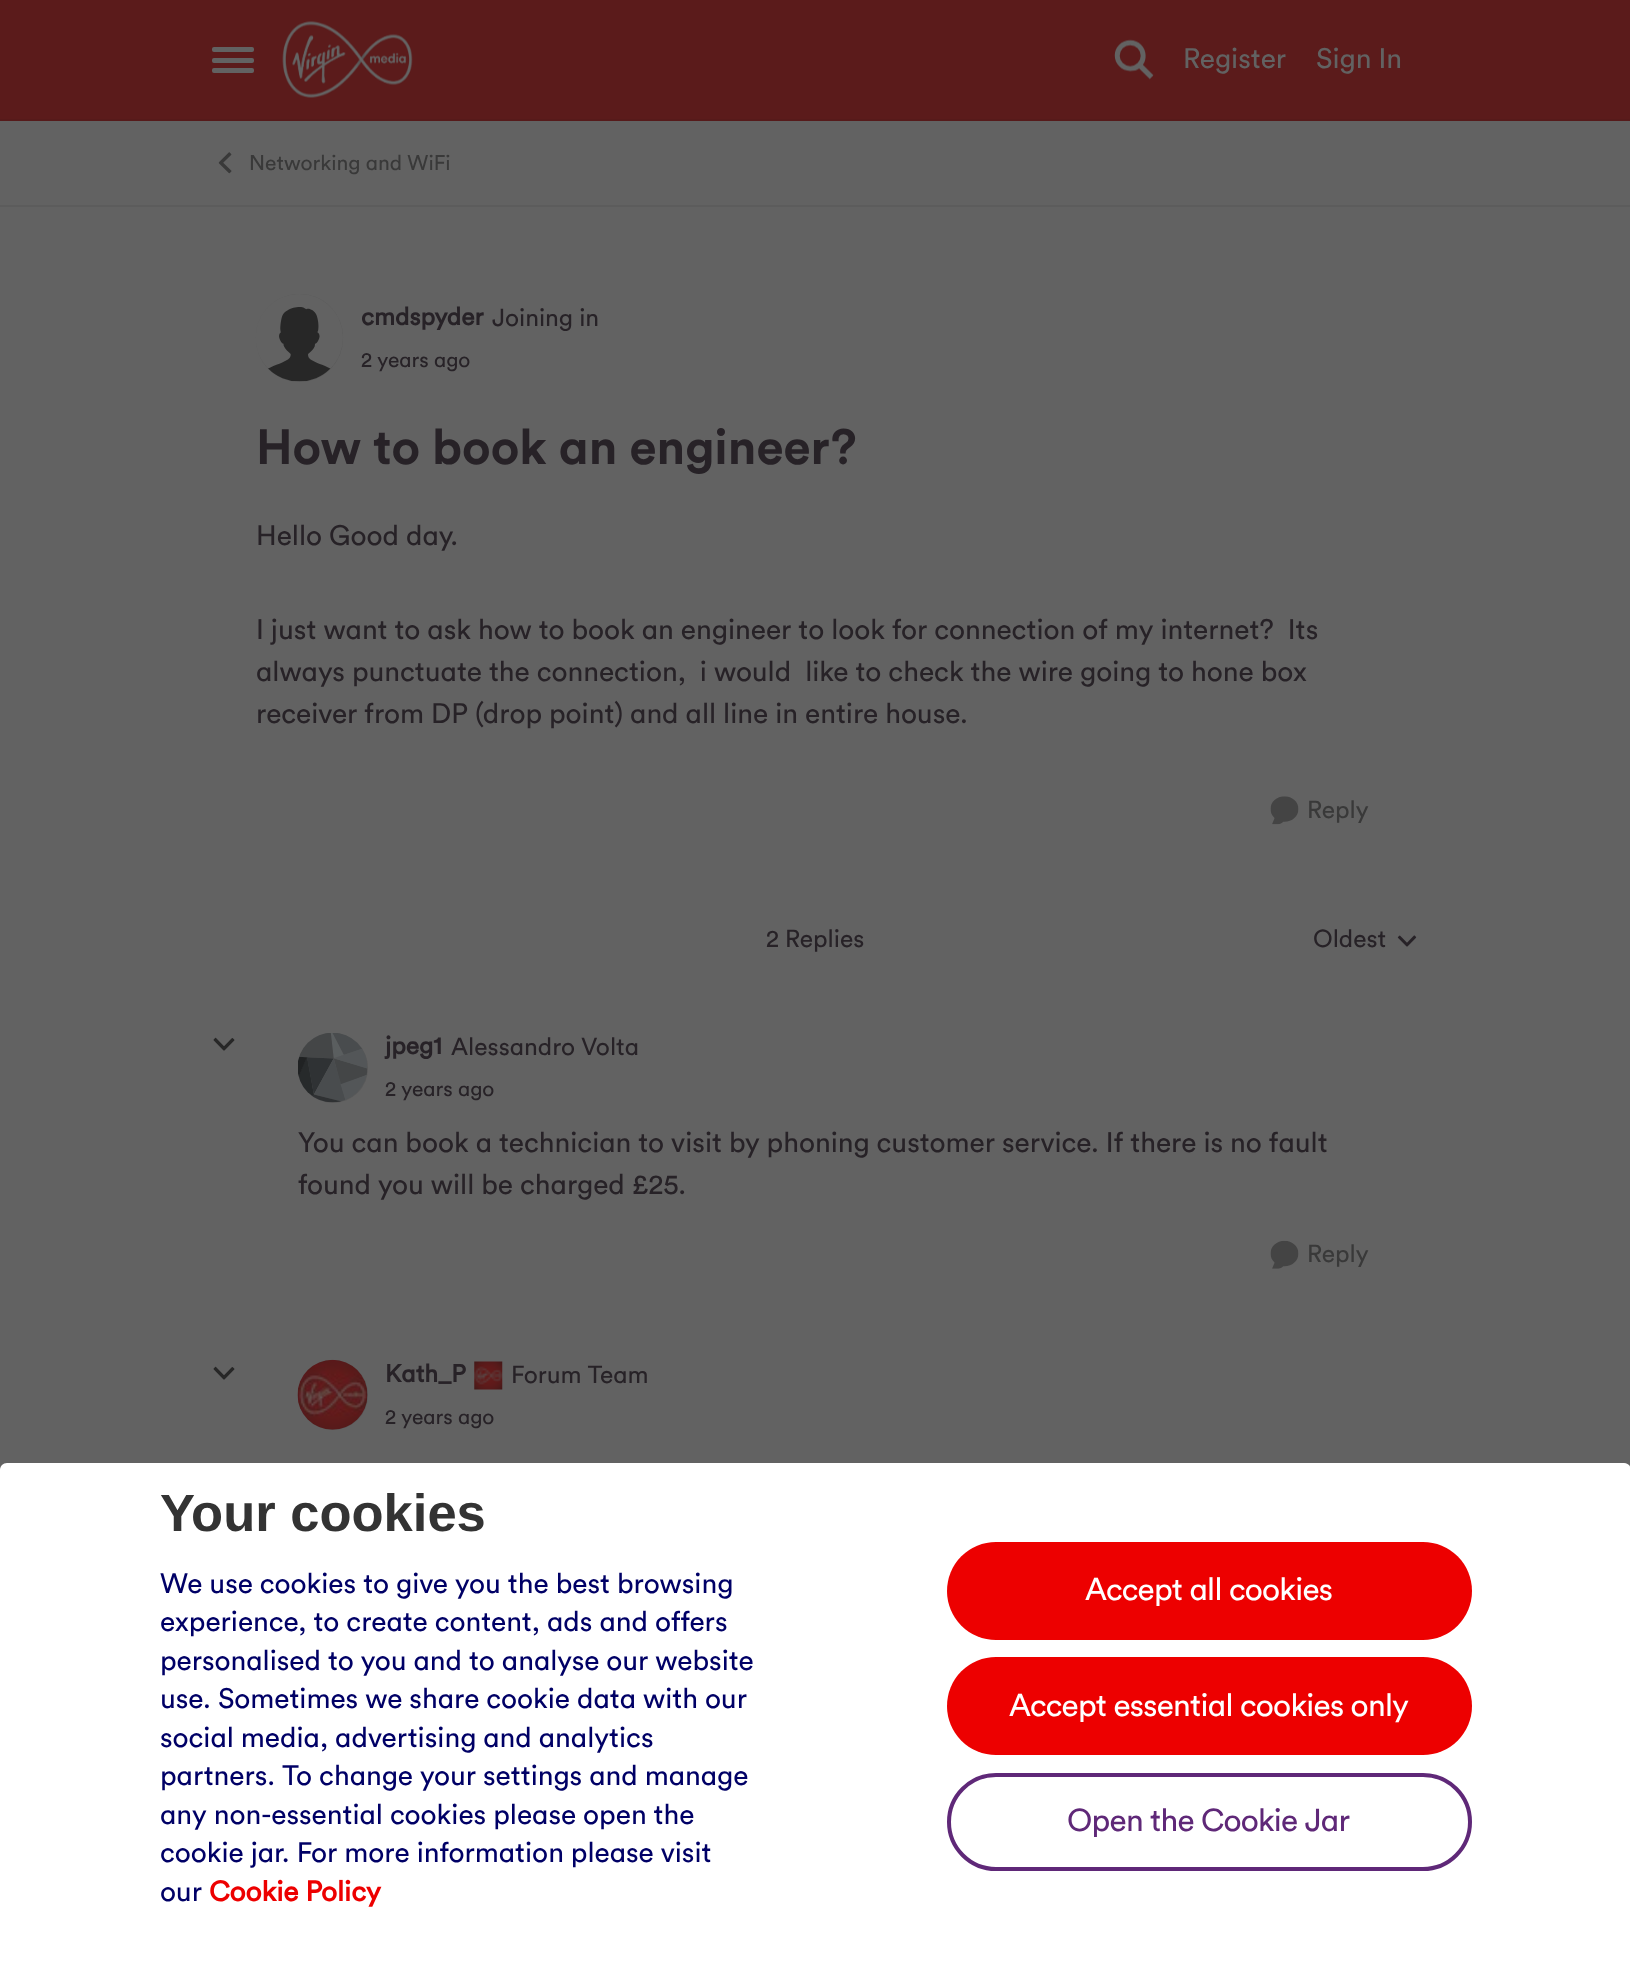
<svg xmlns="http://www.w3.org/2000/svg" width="1630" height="1965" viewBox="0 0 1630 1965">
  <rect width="100%" height="100%" fill="rgb(98,98,98)"/>
  <rect x="0" y="0" width="1630" height="119" fill="rgb(91,27,27)"/>
  <rect x="0" y="119" width="1630" height="2" fill="rgb(86,26,26)"/>
  <rect x="212" y="47" width="42" height="5" rx="2" fill="rgb(98,98,98)"/>
  <rect x="212" y="58" width="42" height="5" rx="2" fill="rgb(98,98,98)"/>
  <rect x="212" y="68" width="42" height="5" rx="2" fill="rgb(98,98,98)"/>
  <image x="282" y="21" width="131" height="77" href="pic1.png"/>
  <image x="1114" y="39" width="40" height="41" href="pic2.png"/>
  <g font-family="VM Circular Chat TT" font-size="28" fill="rgb(98,98,98)">
    <text x="1183" y="68">Register</text>
    <text x="1316" y="68">Sign In</text>
  </g>
  <rect x="0" y="205" width="1630" height="2" fill="rgb(92,92,92)"/>
  <image x="218" y="152" width="14" height="22" href="pic3.png"/>
  <text x="249" y="170" font-family="VM Circular Chat TT" font-size="21" fill="rgb(57,57,57)">Networking and WiFi</text>
  <rect x="256" y="294" width="87" height="88" rx="43.5" fill="rgb(89,89,89)"/>
  <image x="256" y="294" width="87" height="88" href="pic4.png"/>
  <text x="361" y="325" font-family="VM Circular Chat TT" font-size="24.5" font-weight="bold" fill="rgb(39,34,39)">cmdspyder</text>
  <text x="492" y="326" font-family="VM Circular Chat TT" font-size="24.5" fill="rgb(39,34,39)">Joining in</text>
  <text x="361" y="367" font-family="VM Circular Chat TT" font-size="21" fill="rgb(39,34,39)">2 years ago</text>
  <text x="256" y="464" font-family="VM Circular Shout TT" font-size="49" font-weight="bold" fill="rgb(39,34,39)">How to book an engineer?</text>
  <g font-family="VM Circular Chat TT" font-size="28" fill="rgb(39,34,39)">
    <text x="256" y="545">Hello Good day.</text>
    <text xml:space="preserve"><tspan x="256" y="639">I just want to ask how to book an engineer to look for connection of my internet?  Its</tspan><tspan x="256" y="681">always punctuate the connection,  i would  like to check the wire going to hone box</tspan><tspan x="256" y="723">receiver from DP (drop point) and all line in entire house.</tspan></text>
  </g>
  <image x="1270" y="796" width="29" height="29" href="pic5.png"/>
  <text x="1307" y="818" font-family="VM Circular Chat TT" font-size="24.5" fill="rgb(57,57,57)">Reply</text>
  <g font-family="VM Circular Chat TT" font-size="24.5" fill="rgb(39,34,39)">
    <text x="766" y="947">2 Replies</text>
    <text x="1313" y="947">Oldest</text>
  </g>
  <image x="1397" y="935" width="20" height="12" href="pic6.png"/>
  <image x="213" y="1037" width="22" height="14" href="pic7.png"/>
  <circle cx="333" cy="1068" r="35" fill="rgb(89,89,89)"/>
  <image x="298" y="1033" width="70" height="70" href="pic8.png"/>
  <text x="385" y="1054" font-family="VM Circular Chat TT" font-size="24.5" font-weight="bold" fill="rgb(39,34,39)">jpeg1</text>
  <text x="451" y="1055" font-family="VM Circular Chat TT" font-size="24.5" fill="rgb(39,34,39)">Alessandro Volta</text>
  <text x="385" y="1096" font-family="VM Circular Chat TT" font-size="21" fill="rgb(39,34,39)">2 years ago</text>
  <g font-family="VM Circular Chat TT" font-size="28" fill="rgb(39,34,39)">
    <text>
      <tspan x="298" y="1152">You can book a technician to visit by phoning customer service. If there is no fault</tspan>
      <tspan x="298" y="1194">found you will be charged £25.</tspan>
    </text>
  </g>
  <image x="1270" y="1240" width="29" height="29" href="pic9.png"/>
  <text x="1307" y="1262" font-family="VM Circular Chat TT" font-size="24.5" fill="rgb(57,57,57)">Reply</text>
  <image x="213" y="1366" width="22" height="14" href="pic7.png"/>
  <circle cx="333" cy="1395" r="35" fill="rgb(89,89,89)"/>
  <image x="297" y="1359" width="71" height="71" href="pic10.png"/>
  <text x="385" y="1382" font-family="VM Circular Chat TT" font-size="24.5" font-weight="bold" fill="rgb(39,34,39)">Kath_P</text>
  <image x="474" y="1361" width="29" height="29" href="pic11.png"/>
  <text x="511" y="1383" font-family="VM Circular Chat TT" font-size="24.5" fill="rgb(39,34,39)">Forum Team</text>
  <text x="385" y="1424" font-family="VM Circular Chat TT" font-size="21" fill="rgb(39,34,39)">2 years ago</text>
  <path d="M7 1463H1624C1628 1463 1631 1466 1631 1470V1965H0V1470C0 1466 3 1463 7 1463Z" fill="rgb(255,255,255)"/>
  <text x="160" y="1531" font-family="Liberation Sans" font-size="52.5" font-weight="bold" fill="rgb(51,51,51)">Your cookies</text>
  <g font-family="VM Circular Chat TT" font-size="28" fill="rgb(0,0,102)">
    <text>
      <tspan x="160" y="1593">We use cookies to give you the best browsing</tspan>
      <tspan x="160" y="1631">experience, to create content, ads and offers</tspan>
      <tspan x="160" y="1670">personalised to you and to analyse our website</tspan>
      <tspan x="160" y="1708">use. Sometimes we share cookie data with our</tspan>
      <tspan x="160" y="1747">social media, advertising and analytics</tspan>
      <tspan x="160" y="1785">partners. To change your settings and manage</tspan>
      <tspan x="160" y="1824">any non-essential cookies please open the</tspan>
      <tspan x="160" y="1862">cookie jar. For more information please visit</tspan>
      <tspan x="160" y="1901">our</tspan>
    </text>
  </g>
  <text x="209" y="1901" font-family="VM Circular Chat TT" font-size="28" font-weight="bold" fill="rgb(237,0,0)">Cookie Policy</text>
  <rect x="947" y="1542" width="525" height="98" rx="49" fill="rgb(237,0,0)"/>
  <text x="1085" y="1600" font-family="VM Circular Chat TT" font-size="31.5" letter-spacing="-0.7" fill="rgb(255,255,255)">Accept all cookies</text>
  <rect x="947" y="1657" width="525" height="98" rx="49" fill="rgb(237,0,0)"/>
  <text x="1009" y="1716" font-family="VM Circular Chat TT" font-size="31.5" letter-spacing="-0.7" fill="rgb(255,255,255)">Accept essential cookies only</text>
  <rect x="949" y="1775" width="521" height="94" rx="47" fill="none" stroke="rgb(95,40,120)" stroke-width="4"/>
  <text x="1067" y="1831" font-family="VM Circular Chat TT" font-size="31.5" letter-spacing="-0.7" fill="rgb(95,40,120)">Open the Cookie Jar</text>
</svg>
